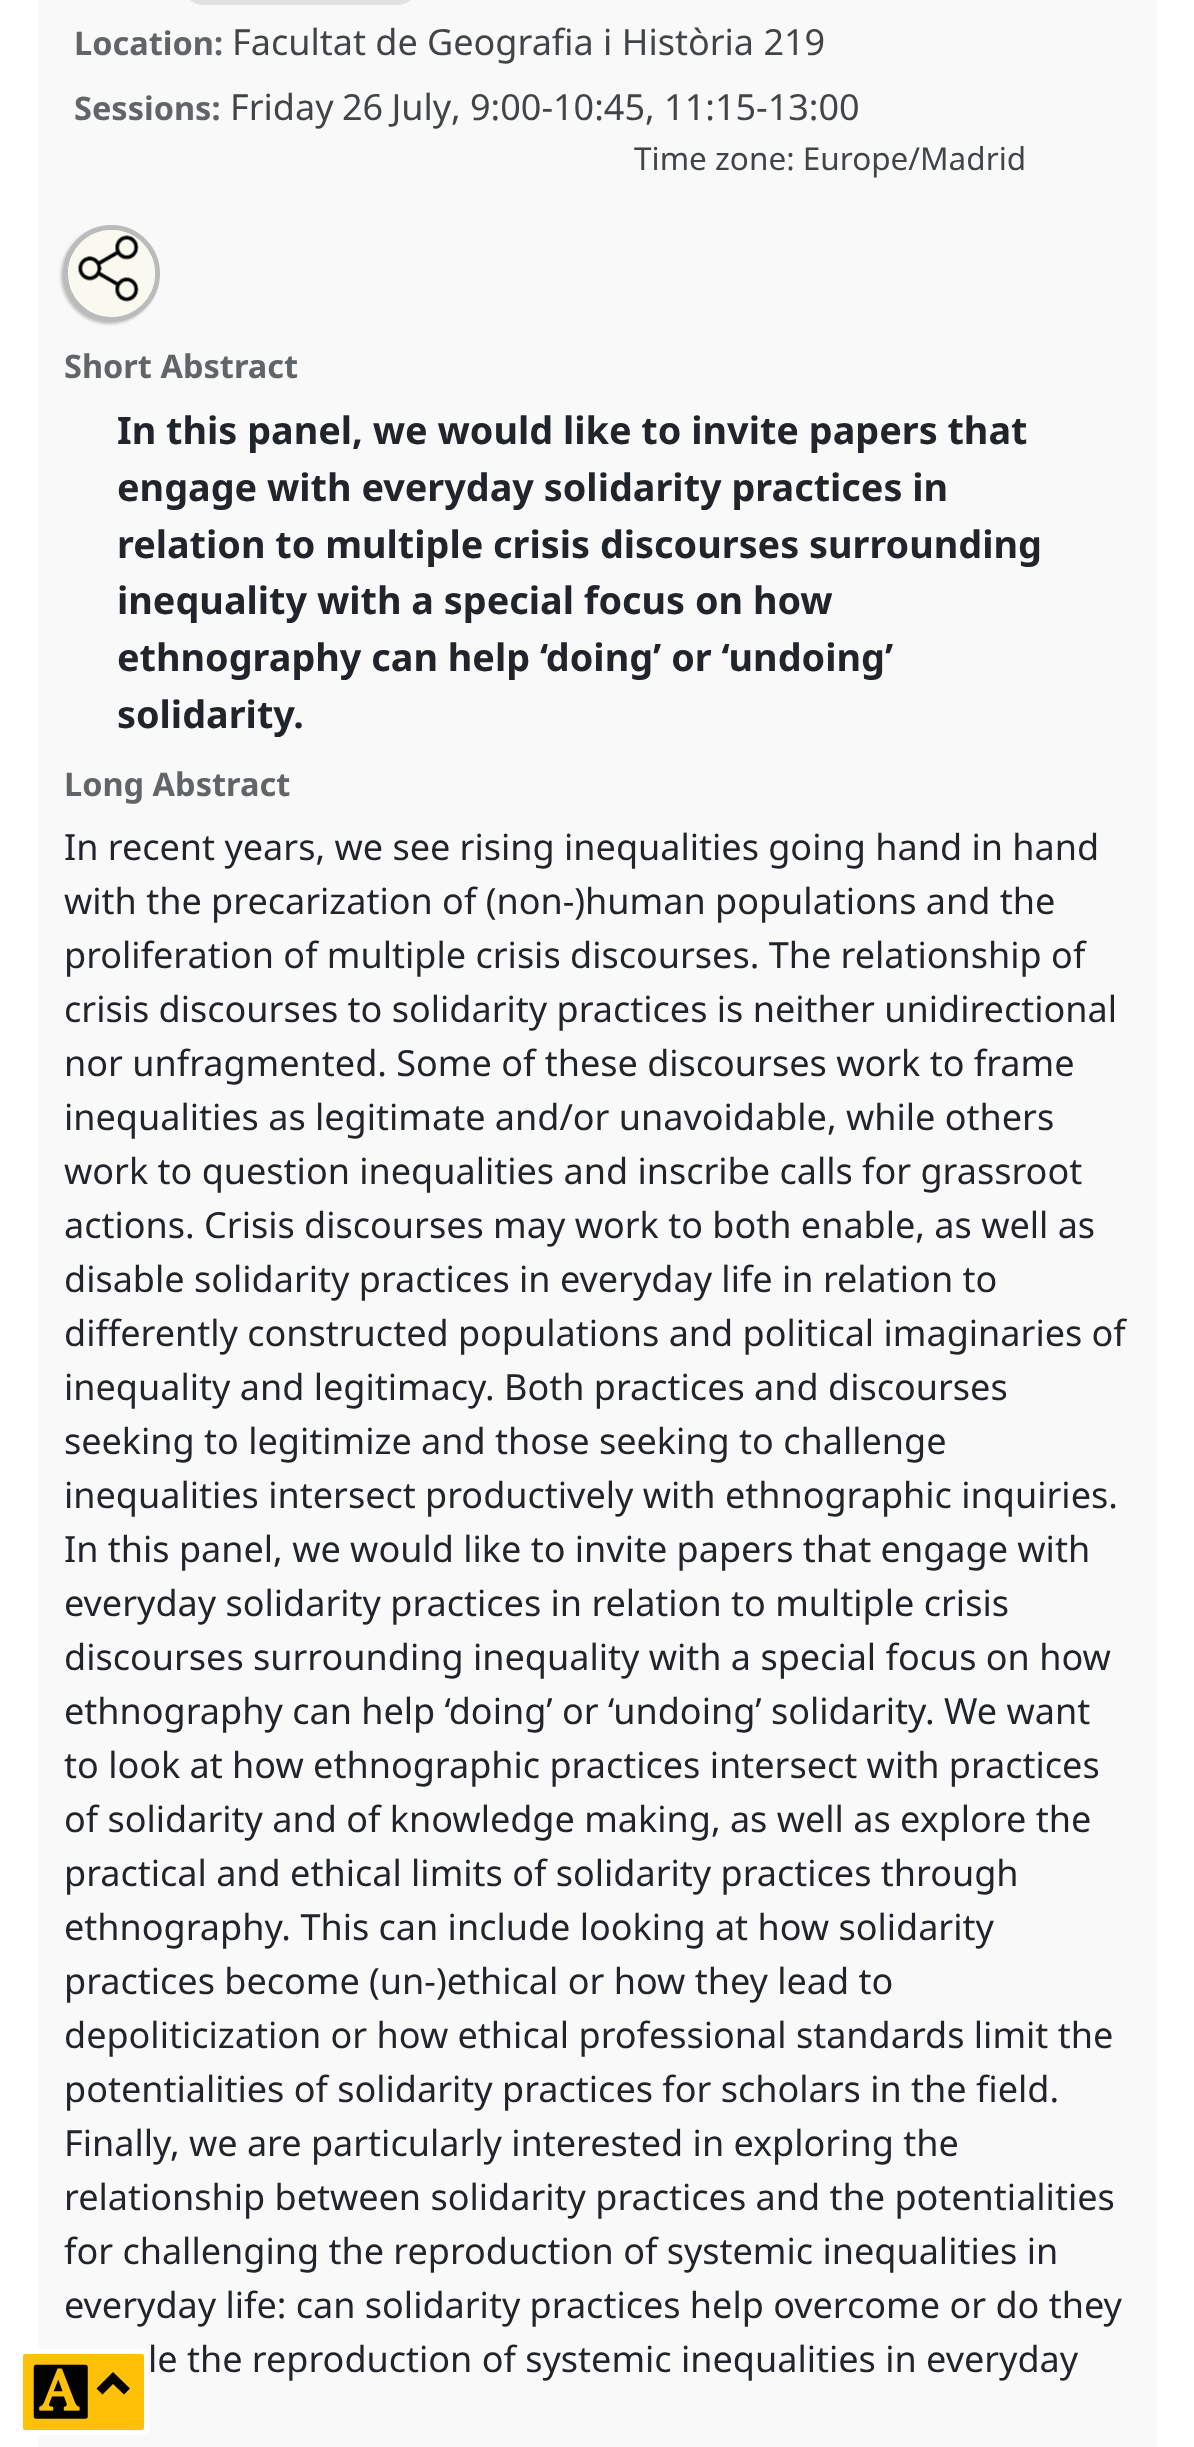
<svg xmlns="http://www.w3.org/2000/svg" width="1194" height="2447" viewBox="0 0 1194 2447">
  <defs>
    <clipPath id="clip1"><rect x="68" y="230" width="87" height="87" rx="43.5"/></clipPath>
  </defs>
  <rect width="100%" height="100%" fill="rgb(255,255,255)"/>
  <rect x="38" y="0" width="1119" height="2447" fill="rgb(249,249,249)"/>
  <rect x="187" y="-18" width="227" height="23" rx="18" fill="rgb(225,225,225)"/>
  <text x="74" y="55" font-family="Noto Sans" font-size="32.5" font-weight="bold" fill="rgb(98,101,103)">Location:</text>
  <text x="232" y="55" font-family="Noto Sans" font-size="36" fill="rgb(65,69,72)">Facultat de Geografia i Història 219</text>
  <text x="74" y="120" font-family="Noto Sans" font-size="32.5" font-weight="bold" fill="rgb(98,101,103)">Sessions:</text>
  <g font-family="Noto Sans" font-size="36" fill="rgb(65,69,72)">
    <text x="230" y="120" word-spacing="-1">Friday 26 July</text>
    <text x="451" y="120">, 9:00-10:45, 11:15-13:00</text>
  </g>
  <text x="634" y="170" font-family="Noto Sans" font-size="31.5" fill="rgb(65,69,72)">Time zone: Europe/Madrid</text>
  <rect x="61" y="227" width="97" height="97" rx="48.5" fill="rgba(55,55,55,0.3)" filter="blur(1.5px)"/>
  <circle cx="111.5" cy="273.5" r="46" fill="rgb(255,255,248)" stroke="rgb(187,187,187)" stroke-width="5"/>
  <g clip-path="url(#clip1)">
    <circle cx="116" cy="269" r="48" fill="rgb(249,249,240)"/>
  </g>
  <image x="78" y="235" width="61" height="67" href="pic1.png"/>
  <text x="64" y="378" font-family="Noto Sans" font-size="32.5" font-weight="bold" fill="rgb(98,101,103)">Short Abstract</text>
  <g font-family="Noto Sans" font-size="37.8" font-weight="bold" fill="rgb(33,37,41)">
    <text>
      <tspan x="117" y="444">In this panel, we would like to invite papers that</tspan>
      <tspan x="117" y="501">engage with everyday solidarity practices in</tspan>
      <tspan x="117" y="558">relation to multiple crisis discourses surrounding</tspan>
      <tspan x="117" y="614">inequality with a special focus on how</tspan>
      <tspan x="117" y="671">ethnography can help ‘doing’ or ‘undoing’</tspan>
      <tspan x="117" y="728">solidarity.</tspan>
    </text>
  </g>
  <text x="64" y="796" font-family="Noto Sans" font-size="32.5" font-weight="bold" fill="rgb(98,101,103)">Long Abstract</text>
  <g font-family="Noto Sans" font-size="36" fill="rgb(33,37,41)">
    <text>
      <tspan x="64" y="860">In recent years, we see rising inequalities going hand in hand</tspan>
      <tspan x="64" y="914">with the precarization of (non-)human populations and the</tspan>
      <tspan x="64" y="968">proliferation of multiple crisis discourses. The relationship of</tspan>
      <tspan x="64" y="1022">crisis discourses to solidarity practices is neither unidirectional</tspan>
      <tspan x="64" y="1076">nor unfragmented. Some of these discourses work to frame</tspan>
      <tspan x="64" y="1130">inequalities as legitimate and/or unavoidable, while others</tspan>
      <tspan x="64" y="1184">work to question inequalities and inscribe calls for grassroot</tspan>
      <tspan x="64" y="1238">actions. Crisis discourses may work to both enable, as well as</tspan>
      <tspan x="64" y="1292">disable solidarity practices in everyday life in relation to</tspan>
      <tspan x="64" y="1346">differently constructed populations and political imaginaries of</tspan>
      <tspan x="64" y="1400">inequality and legitimacy. Both practices and discourses</tspan>
      <tspan x="64" y="1454">seeking to legitimize and those seeking to challenge</tspan>
      <tspan x="64" y="1508">inequalities intersect productively with ethnographic inquiries.</tspan>
      <tspan x="64" y="1562">In this panel, we would like to invite papers that engage with</tspan>
      <tspan x="64" y="1616">everyday solidarity practices in relation to multiple crisis</tspan>
      <tspan x="64" y="1670">discourses surrounding inequality with a special focus on how</tspan>
      <tspan x="64" y="1724">ethnography can help ‘doing’ or ‘undoing’ solidarity. We want</tspan>
      <tspan x="64" y="1778">to look at how ethnographic practices intersect with practices</tspan>
      <tspan x="64" y="1832">of solidarity and of knowledge making, as well as explore the</tspan>
      <tspan x="64" y="1886">practical and ethical limits of solidarity practices through</tspan>
      <tspan x="64" y="1940">ethnography. This can include looking at how solidarity</tspan>
      <tspan x="64" y="1994">practices become (un-)ethical or how they lead to</tspan>
      <tspan x="64" y="2048">depoliticization or how ethical professional standards limit the</tspan>
      <tspan x="64" y="2102">potentialities of solidarity practices for scholars in the field.</tspan>
      <tspan x="64" y="2156">Finally, we are particularly interested in exploring the</tspan>
      <tspan x="64" y="2210">relationship between solidarity practices and the potentialities</tspan>
      <tspan x="64" y="2264">for challenging the reproduction of systemic inequalities in</tspan>
      <tspan x="64" y="2318">everyday life: can solidarity practices help overcome or do they</tspan>
    </text>
    <text x="148" y="2372">le the reproduction of systemic inequalities in everyday</text>
  </g>
  <rect x="20.5" y="2351.5" width="126" height="81" rx="4.5" fill="rgb(255,193,7)" stroke="rgb(255,255,255)" stroke-width="5"/>
  <image x="33" y="2364" width="55" height="55" href="pic2.png"/>
  <path d="M130 2388.5L124 2394.5L113 2384L102.5 2394.5L96.5 2388.5L113 2372Z" fill="rgb(0,0,0)"/>
</svg>
